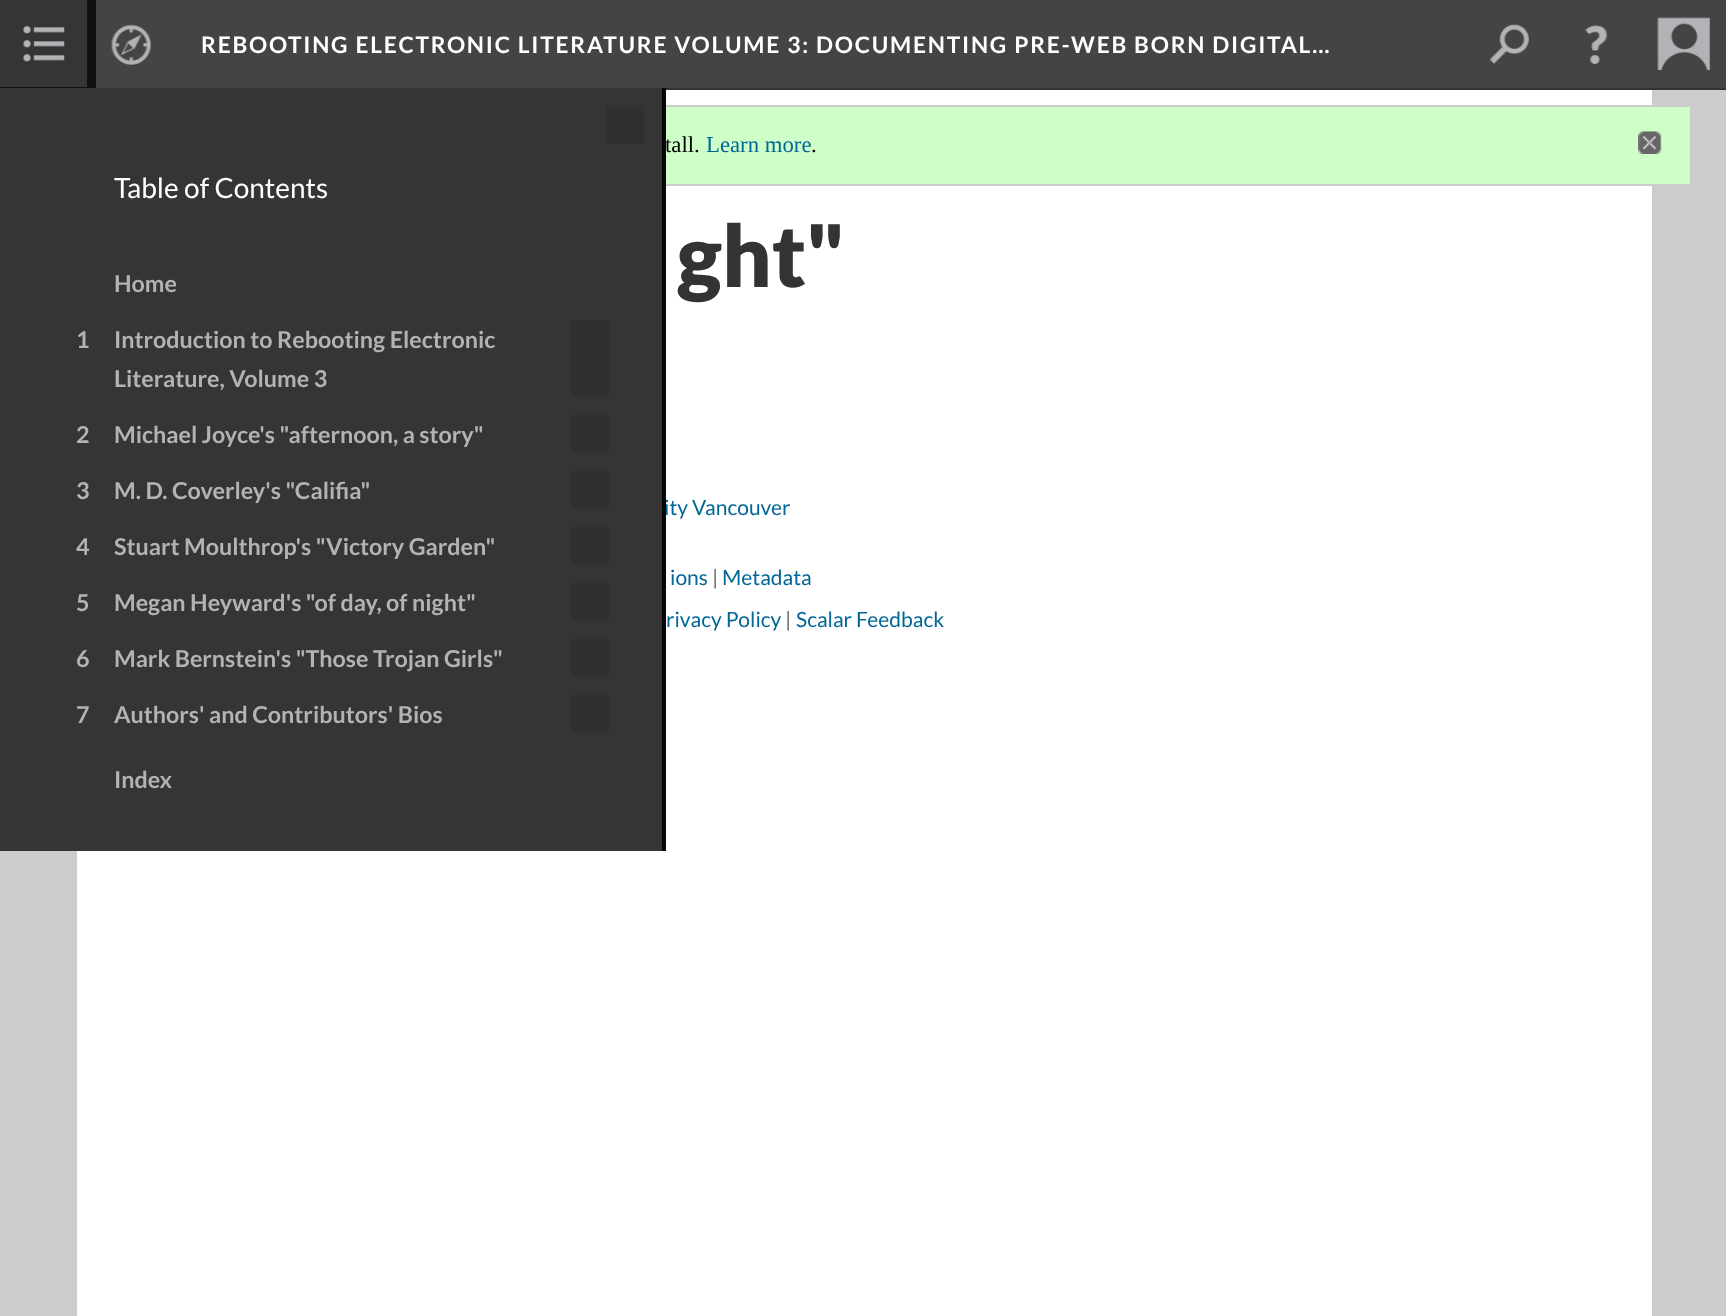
<svg xmlns="http://www.w3.org/2000/svg" width="1726" height="1316" viewBox="0 0 1726 1316">
  <rect width="100%" height="100%" fill="rgb(204,204,205)"/>
  <rect x="96" y="0" width="1630" height="88" fill="rgb(68,68,68)"/>
  <rect x="666" y="88" width="1060" height="2" fill="rgb(51,51,51)"/>
  <text x="201" y="53" font-family="Lato" font-size="22.75" font-weight="bold" letter-spacing="1.75" fill="rgb(255,255,255)">REBOOTING ELECTRONIC LITERATURE VOLUME 3: DOCUMENTING PRE-WEB BORN DIGITAL…</text>
  <image x="1489" y="24" width="40" height="40" href="pic1.png"/>
  <image x="1585" y="25" width="23" height="39" href="pic2.png"/>
  <image x="1657" y="17" width="53" height="53" href="pic3.png"/>
  <image x="111" y="24" width="41" height="41" href="pic4.png"/>
  <rect x="0" y="0" width="87" height="87" fill="rgb(53,53,53)"/>
  <image x="22" y="26" width="43" height="36" href="pic5.png"/>
  <rect x="77" y="90" width="1575" height="1226" fill="rgb(255,255,255)"/>
  <rect x="-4.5" y="-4.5" width="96" height="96" fill="none" stroke="rgb(16,16,16)" stroke-width="9"/>
  <rect x="666" y="107" width="1024" height="77" fill="rgb(206,255,200)"/>
  <rect x="19" y="106" width="1672" height="79" fill="none" stroke="rgb(204,204,204)" stroke-width="2"/>
  <rect x="0" y="88" width="662" height="763" fill="rgb(53,53,53)"/>
  <text x="665" y="152" font-family="Liberation Serif" font-size="22.75" fill="rgb(0,0,0)">tall.</text>
  <text x="664" y="515" font-family="Lato" font-size="21" fill="rgb(2,102,151)">ity Vancouver</text>
  <rect x="662" y="88" width="4" height="763" fill="rgb(7,7,7)"/>
  <rect x="606" y="105" width="38" height="39" fill="rgb(48,48,48)"/>
  <text x="114" y="198" font-family="Lato" font-size="28" fill="rgb(255,255,255)">Table of Contents</text>
  <g font-family="Lato" font-size="23.3" font-weight="bold" fill="rgb(179,179,179)">
    <text x="114" y="292">Home</text>
    <text x="76" y="348">1</text>
    <text>
      <tspan x="114" y="348">Introduction to Rebooting Electronic</tspan>
      <tspan x="114" y="387">Literature, Volume 3</tspan>
    </text>
  </g>
  <rect x="571" y="320" width="38" height="77" fill="rgb(48,48,48)"/>
  <g font-family="Lato" font-size="23.3" font-weight="bold" fill="rgb(179,179,179)">
    <text x="76" y="443">2</text>
    <text x="114" y="443">Michael Joyce's "afternoon, a story"</text>
  </g>
  <rect x="571" y="415" width="38" height="38" fill="rgb(48,48,48)"/>
  <g font-family="Lato" font-size="23.3" font-weight="bold" fill="rgb(179,179,179)">
    <text x="76" y="499">3</text>
    <text x="114" y="499">M. D. Coverley's "Califia"</text>
  </g>
  <rect x="571" y="471" width="38" height="38" fill="rgb(48,48,48)"/>
  <g font-family="Lato" font-size="23.3" font-weight="bold" fill="rgb(179,179,179)">
    <text x="76" y="555">4</text>
    <text x="114" y="555">Stuart Moulthrop's "Victory Garden"</text>
  </g>
  <rect x="571" y="527" width="38" height="38" fill="rgb(48,48,48)"/>
  <g font-family="Lato" font-size="23.3" font-weight="bold" fill="rgb(179,179,179)">
    <text x="76" y="611">5</text>
    <text x="114" y="611">Megan Heyward's "of day, of night"</text>
  </g>
  <rect x="571" y="583" width="38" height="38" fill="rgb(48,48,48)"/>
  <g font-family="Lato" font-size="23.3" font-weight="bold" fill="rgb(179,179,179)">
    <text x="76" y="667">6</text>
    <text x="114" y="667">Mark Bernstein's "Those Trojan Girls"</text>
  </g>
  <rect x="571" y="639" width="38" height="38" fill="rgb(48,48,48)"/>
  <g font-family="Lato" font-size="23.3" font-weight="bold" fill="rgb(179,179,179)">
    <text x="76" y="723">7</text>
    <text x="114" y="723">Authors' and Contributors' Bios</text>
  </g>
  <rect x="571" y="695" width="38" height="38" fill="rgb(48,48,48)"/>
  <text x="114" y="788" font-family="Lato" font-size="23.3" font-weight="bold" fill="rgb(179,179,179)">Index</text>
  <text x="706" y="152" font-family="Liberation Serif" font-size="22.75" fill="rgb(2,102,151)">Learn more</text>
  <text x="811" y="152" font-family="Liberation Serif" font-size="22.75" fill="rgb(0,0,0)">.</text>
  <image x="1638" y="131" width="24" height="23" href="pic6.png"/>
  <text x="677" y="287" font-family="Lato" font-size="86" font-weight="900" fill="rgb(51,51,51)">ght"</text>
  <text x="670" y="585" font-family="Lato" font-size="21" fill="rgb(2,102,151)">ions</text>
  <text x="712" y="585" font-family="Lato" font-size="21" fill="rgb(102,102,102)">|</text>
  <g font-family="Lato" font-size="21" fill="rgb(2,102,151)">
    <text x="722" y="585">Metadata</text>
    <text x="666" y="627">rivacy Policy</text>
  </g>
  <text x="785" y="627" font-family="Lato" font-size="21" fill="rgb(102,102,102)">|</text>
  <text x="796" y="627" font-family="Lato" font-size="21" fill="rgb(2,102,151)">Scalar Feedback</text>
</svg>
